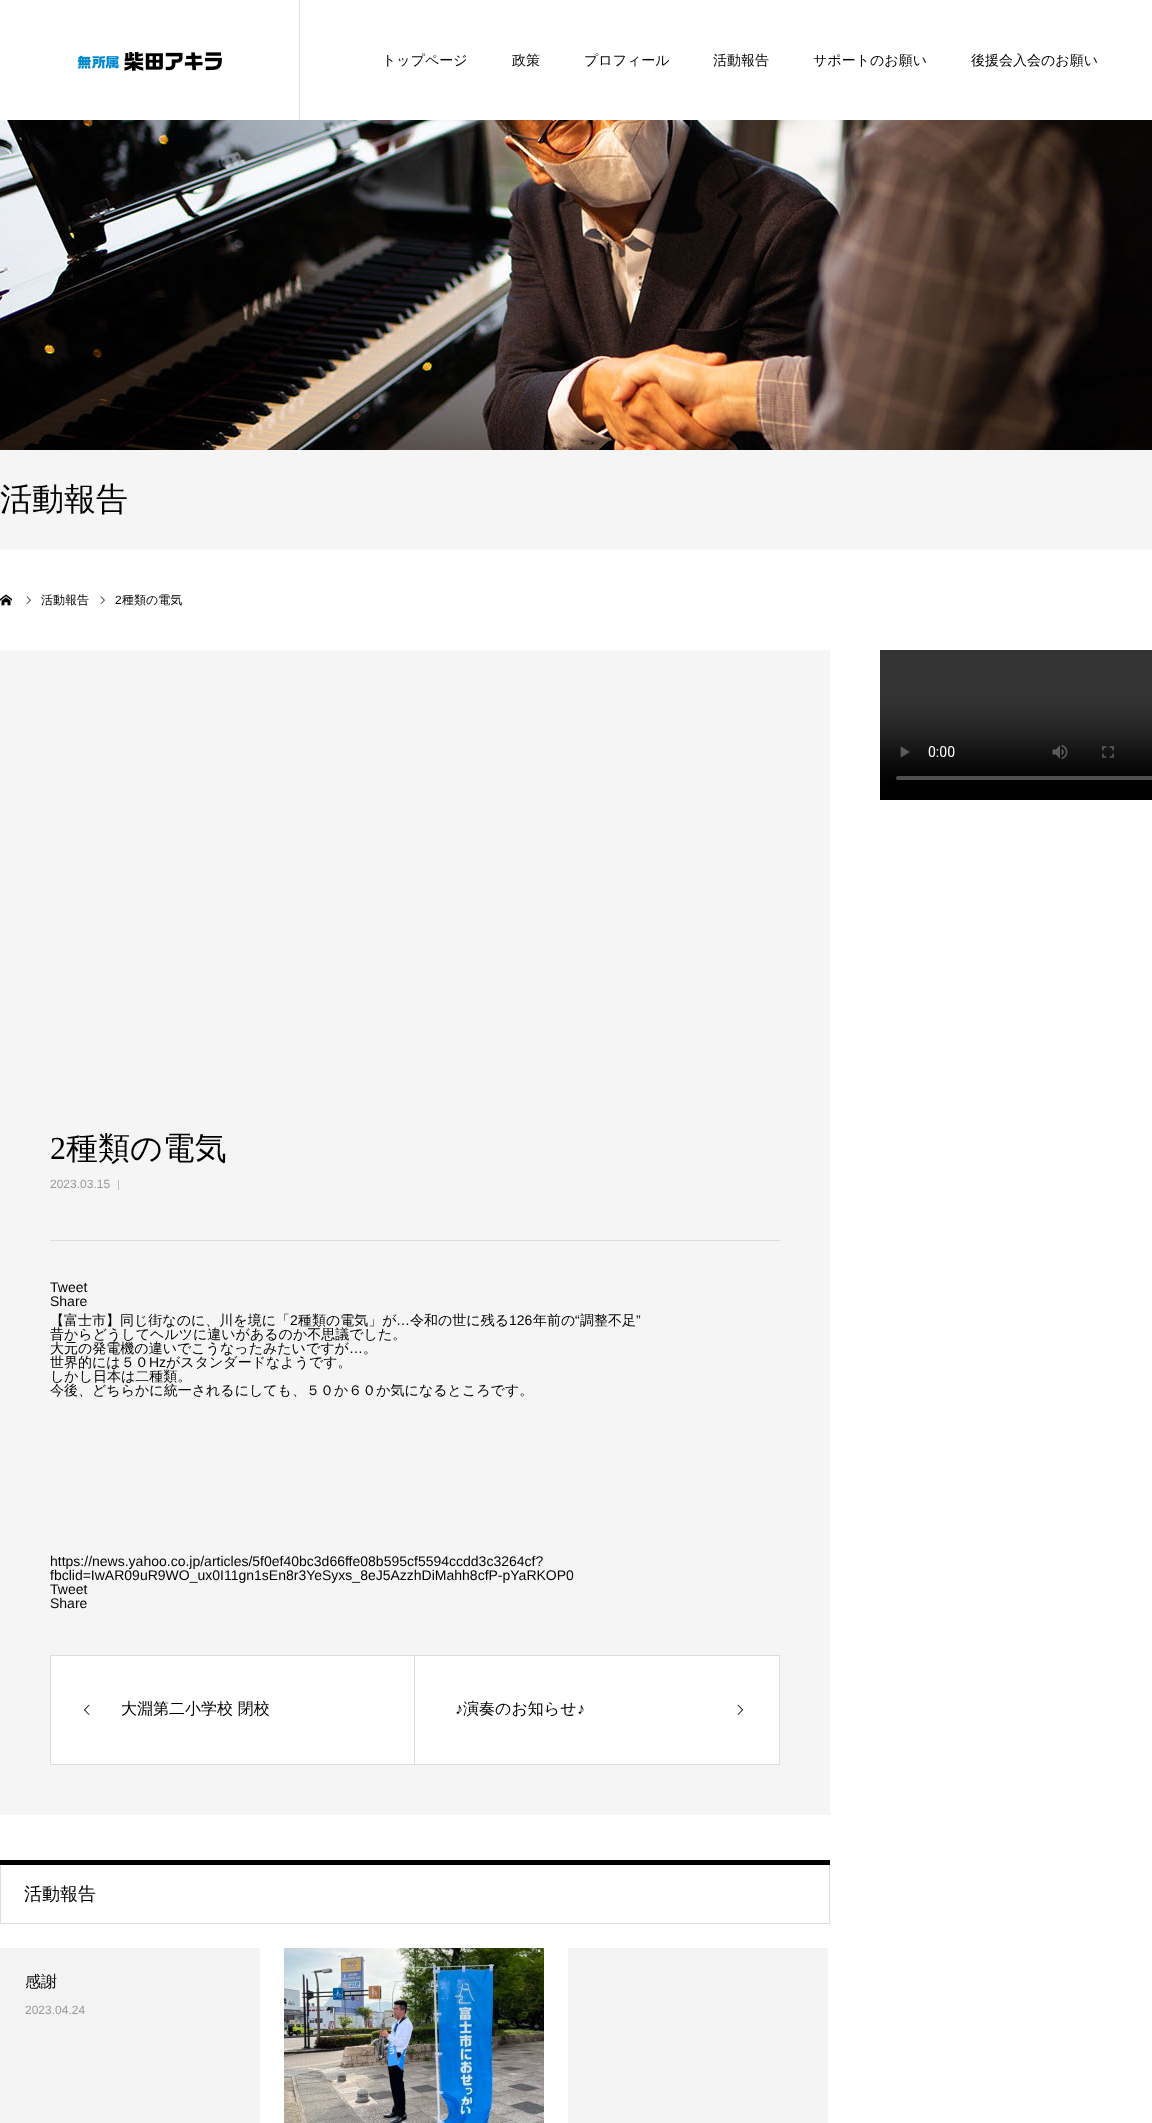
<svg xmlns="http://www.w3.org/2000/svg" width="1152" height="2123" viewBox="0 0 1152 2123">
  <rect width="100%" height="100%" fill="rgb(255,255,255)"/>
  <rect x="299" y="0" width="1" height="120" fill="rgb(221,221,221)"/>
  <image x="77" y="52" width="145" height="19" href="pic1.png"/>
  <g font-family="WenQuanYi Zen Hei" font-size="14" font-weight="500" fill="rgb(0,0,0)">
    <text x="382" y="65">トップページ</text>
    <text x="512" y="65">政策</text>
    <text x="584" y="65">プロフィール</text>
    <text x="713" y="65">活動報告</text>
    <text x="813" y="65">サポートのお願い</text>
    <text x="971" y="65">後援会入会のお願い</text>
  </g>
  <image x="0" y="120" width="1152" height="330" href="pic2.png"/>
  <rect x="0" y="450" width="1152" height="100" fill="rgb(245,245,245)"/>
  <text x="0" y="510" font-family="WenQuanYi Zen Hei" font-size="32" font-weight="500" fill="rgb(0,0,0)">活動報告</text>
  <image x="0" y="594" width="12" height="12" href="pic3.png"/>
  <image x="26" y="596" width="5" height="8" href="pic4.png"/>
  <text x="41" y="604" font-family="WenQuanYi Zen Hei" font-size="12" font-weight="500" fill="rgb(0,0,0)">活動報告</text>
  <image x="100" y="596" width="5" height="8" href="pic4.png"/>
  <text x="115" y="604" font-family="Liberation Sans" font-size="12" fill="rgb(0,0,0)">2</text>
  <text x="122" y="604" font-family="WenQuanYi Zen Hei" font-size="12" font-weight="500" fill="rgb(0,0,0)">種類の電気</text>
  <image x="880" y="650" width="272" height="150" href="pic5.png"/>
  <rect x="0" y="650" width="830" height="1165" fill="rgb(245,245,245)"/>
  <text x="50" y="1159" font-family="Liberation Serif" font-size="32" fill="rgb(0,0,0)">2</text>
  <text x="66" y="1159" font-family="WenQuanYi Zen Hei" font-size="32" font-weight="500" fill="rgb(0,0,0)">種類の電気</text>
  <rect x="50" y="1240" width="730" height="1" fill="rgb(221,221,221)"/>
  <text x="50" y="1188" font-family="Liberation Sans" font-size="12" fill="rgb(153,153,153)">2023.03.15</text>
  <rect x="118" y="1180" width="1" height="10" fill="rgb(187,187,187)"/>
  <g font-family="Liberation Sans" font-size="14" fill="rgb(0,0,0)">
    <text>
      <tspan x="50" y="1292">Tweet</tspan>
      <tspan x="50" y="1306">Share</tspan>
    </text>
  </g>
  <text x="50" y="1325" font-family="WenQuanYi Zen Hei" font-size="14" font-weight="500" fill="rgb(0,0,0)">【富士市】同じ街なのに、川を境に「</text>
  <text x="290" y="1325" font-family="Liberation Sans" font-size="14" fill="rgb(0,0,0)">2</text>
  <g font-family="WenQuanYi Zen Hei" font-size="14" font-weight="500" fill="rgb(0,0,0)">
    <text x="298" y="1325">種類の電気」が</text>
    <text x="410" y="1325">令和の世に残る</text>
  </g>
  <text x="509" y="1325" font-family="Liberation Sans" font-size="14" fill="rgb(0,0,0)">126</text>
  <text x="533" y="1325" font-family="WenQuanYi Zen Hei" font-size="14" font-weight="500" fill="rgb(0,0,0)">年前の</text>
  <text x="575" y="1325" font-family="Liberation Sans" font-size="14" fill="rgb(0,0,0)">“</text>
  <text x="580" y="1325" font-family="WenQuanYi Zen Hei" font-size="14" font-weight="500" fill="rgb(0,0,0)">調整不足</text>
  <g font-family="Liberation Sans" font-size="14" fill="rgb(0,0,0)">
    <text x="636" y="1325">”</text>
    <text x="396" y="1325">…</text>
  </g>
  <g font-family="WenQuanYi Zen Hei" font-size="14" font-weight="500" fill="rgb(0,0,0)">
    <text>
      <tspan x="50" y="1339">昔からどうしてヘルツに違いがあるのか不思議でした。</tspan>
      <tspan x="50" y="1353">大元の発電機の違いでこうなったみたいですが</tspan>
    </text>
  </g>
  <text x="349" y="1353" font-family="Liberation Sans" font-size="14" fill="rgb(0,0,0)">…</text>
  <g font-family="WenQuanYi Zen Hei" font-size="14" font-weight="500" fill="rgb(0,0,0)">
    <text x="363" y="1353">。</text>
    <text x="50" y="1367">世界的には５０</text>
  </g>
  <text x="149" y="1367" font-family="Liberation Sans" font-size="14" fill="rgb(0,0,0)">Hz</text>
  <g font-family="WenQuanYi Zen Hei" font-size="14" font-weight="500" fill="rgb(0,0,0)">
    <text x="166" y="1367">がスタンダードなようです。</text>
    <text>
      <tspan x="50" y="1381">しかし日本は二種類。</tspan>
      <tspan x="50" y="1395">今後、どちらかに統一されるにしても、５０か６０か気になるところです。</tspan>
    </text>
  </g>
  <g font-family="Liberation Sans" font-size="14" fill="rgb(0,0,0)">
    <text>
      <tspan x="50" y="1566">https://news.yahoo.co.jp/articles/5f0ef40bc3d66ffe08b595cf5594ccdd3c3264cf?</tspan>
      <tspan x="50" y="1580">fbclid=IwAR09uR9WO_ux0I11gn1sEn8r3YeSyxs_8eJ5AzzhDiMahh8cfP-pYaRKOP0</tspan>
      <tspan x="50" y="1594">Tweet</tspan>
      <tspan x="50" y="1608">Share</tspan>
    </text>
  </g>
  <rect x="50.5" y="1655.5" width="364" height="109" fill="rgb(255,255,255)" stroke="rgb(221,221,221)"/>
  <image x="84" y="1704" width="6" height="11" href="pic6.png"/>
  <text x="121" y="1714" font-family="WenQuanYi Zen Hei" font-size="16" font-weight="500" fill="rgb(0,0,0)">大淵第二小学校 閉校</text>
  <rect x="415" y="1656" width="364" height="108" fill="rgb(255,255,255)"/>
  <rect x="415" y="1655" width="365" height="1" fill="rgb(221,221,221)"/>
  <rect x="779" y="1655" width="1" height="110" fill="rgb(221,221,221)"/>
  <rect x="415" y="1764" width="365" height="1" fill="rgb(221,221,221)"/>
  <text x="455" y="1714" font-family="Liberation Sans" font-size="16" fill="rgb(0,0,0)">♪</text>
  <text x="463" y="1714" font-family="WenQuanYi Zen Hei" font-size="16" font-weight="500" fill="rgb(0,0,0)">演奏のお知らせ</text>
  <text x="577" y="1714" font-family="Liberation Sans" font-size="16" fill="rgb(0,0,0)">♪</text>
  <image x="737" y="1704" width="6" height="11" href="pic7.png"/>
  <rect x="0" y="1860" width="830" height="5" fill="rgb(0,0,0)"/>
  <rect x="829" y="1865" width="1" height="59" fill="rgb(221,221,221)"/>
  <rect x="0" y="1923" width="830" height="1" fill="rgb(221,221,221)"/>
  <rect x="0" y="1865" width="1" height="59" fill="rgb(221,221,221)"/>
  <text x="24" y="1900" font-family="WenQuanYi Zen Hei" font-size="18" font-weight="500" fill="rgb(0,0,0)">活動報告</text>
  <rect x="0" y="1948" width="260" height="175" fill="rgb(243,243,243)"/>
  <text x="25" y="1987" font-family="WenQuanYi Zen Hei" font-size="16" font-weight="500" fill="rgb(0,0,0)">感謝</text>
  <text x="25" y="2014" font-family="Liberation Sans" font-size="12" fill="rgb(153,153,153)">2023.04.24</text>
  <image x="284" y="1948" width="260" height="175" href="pic8.png"/>
  <rect x="568" y="1948" width="260" height="175" fill="rgb(243,243,243)"/>
</svg>
